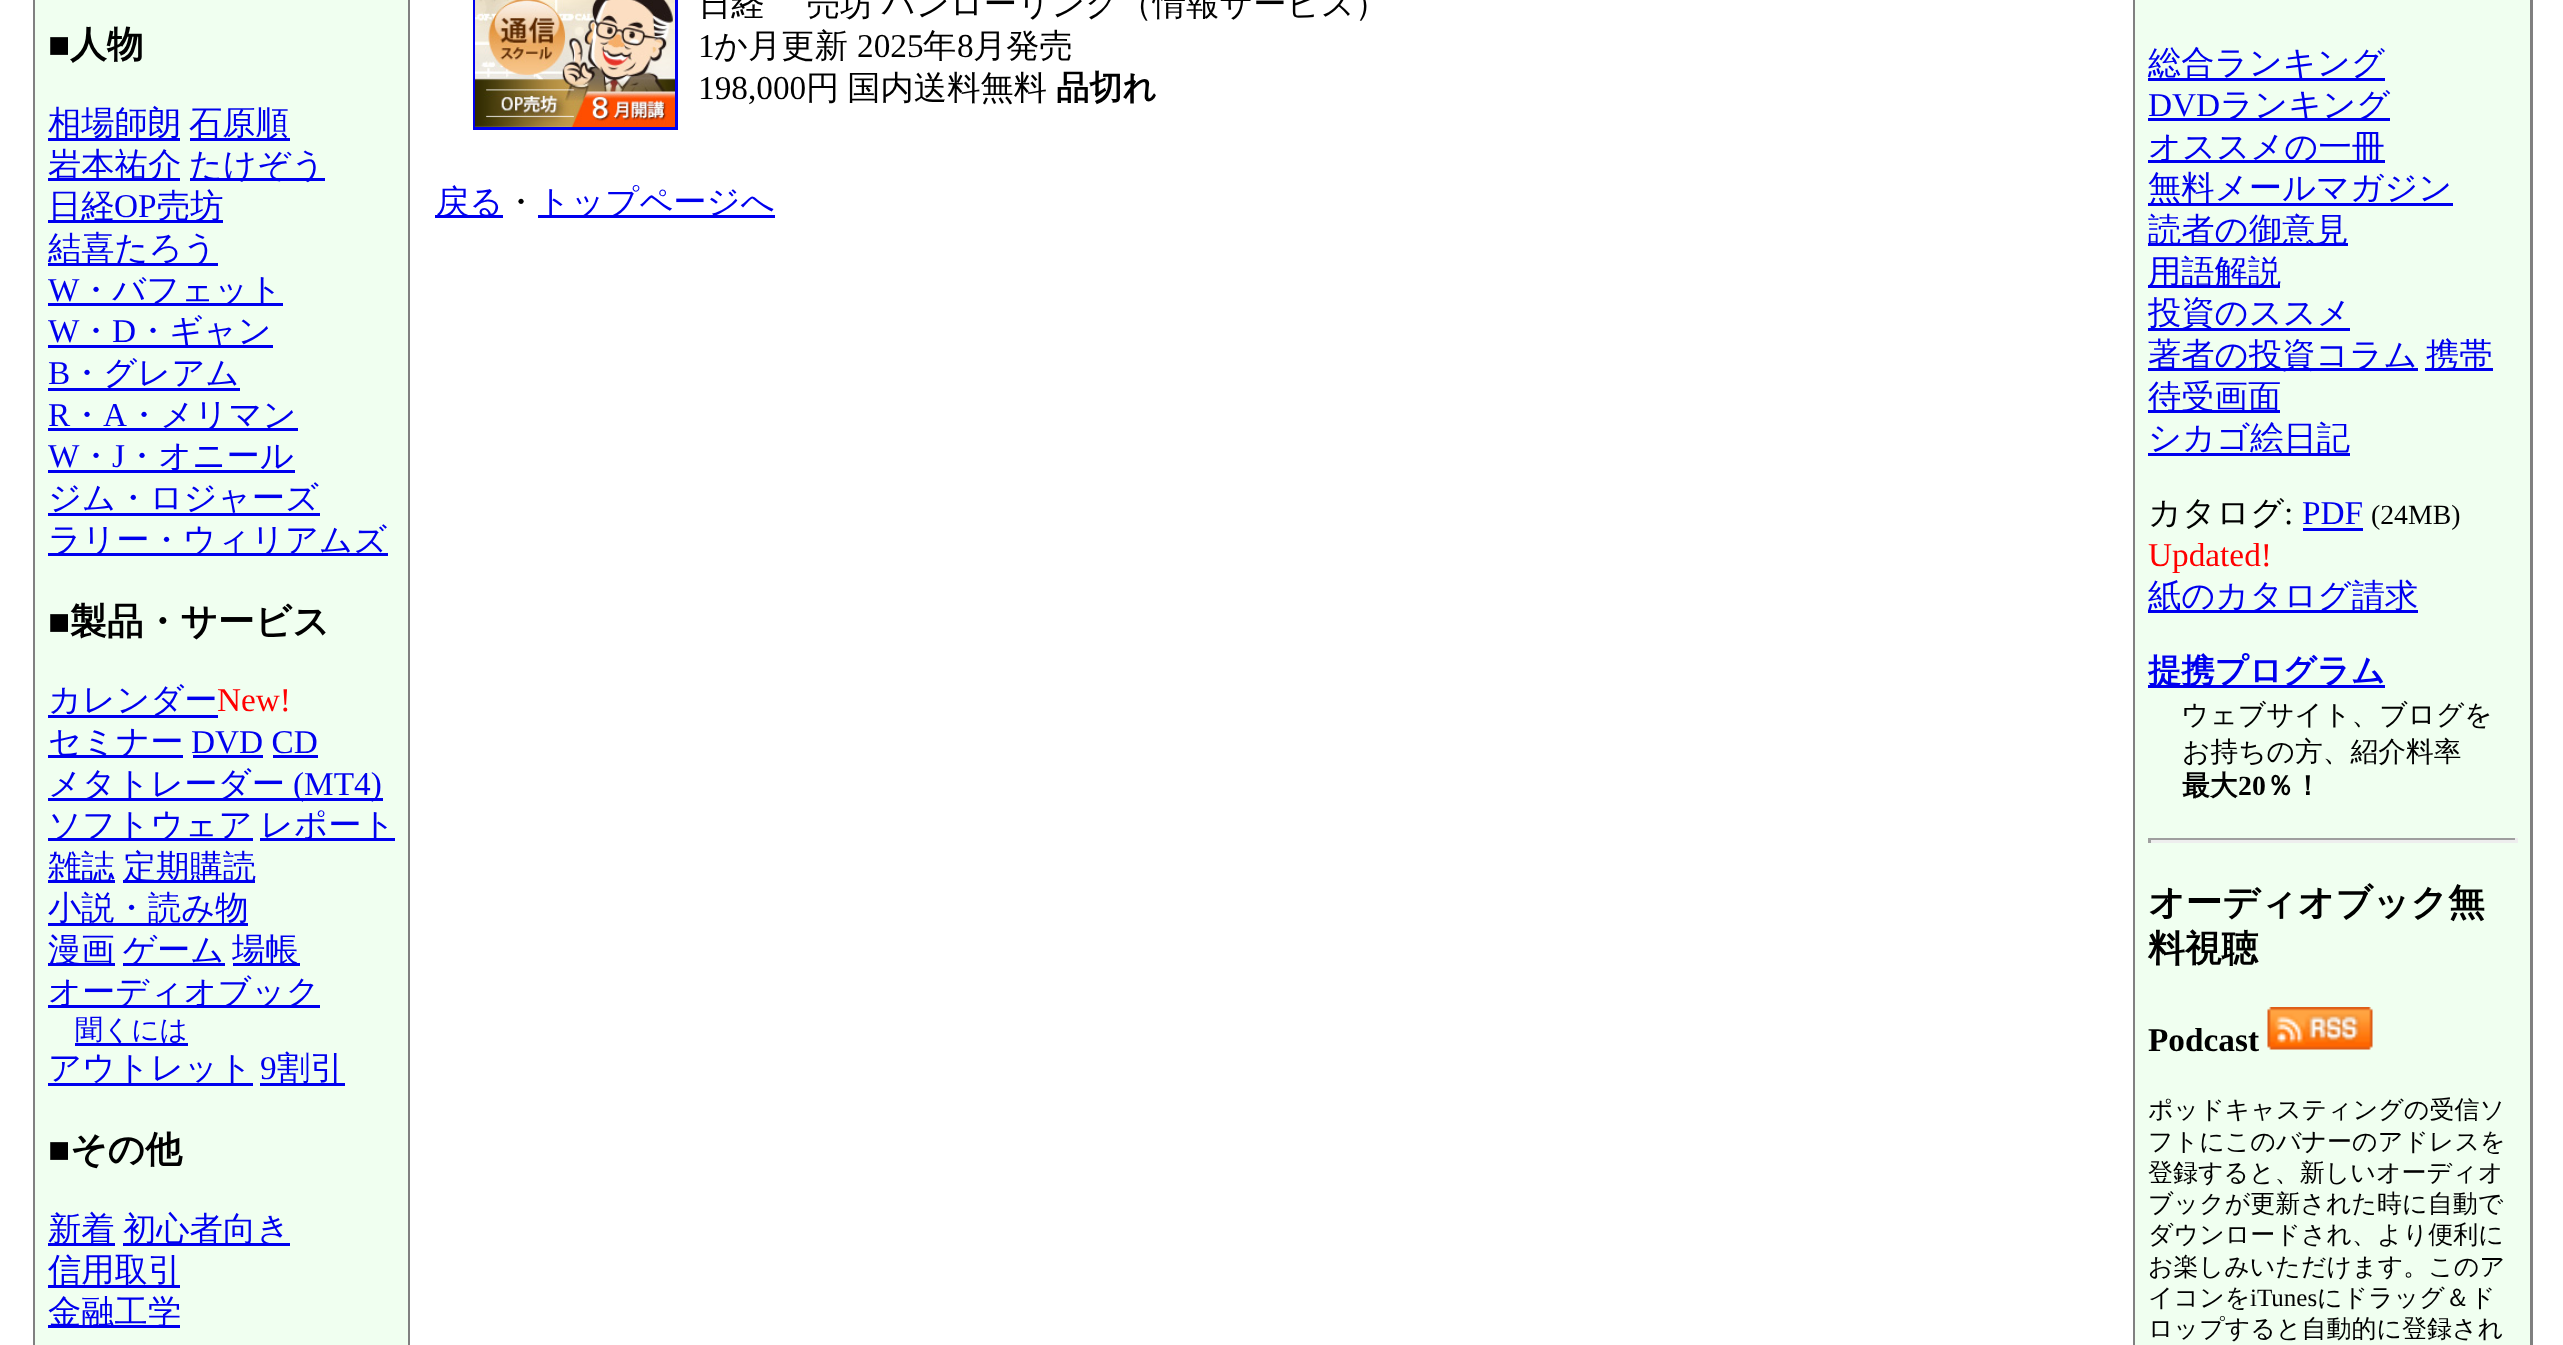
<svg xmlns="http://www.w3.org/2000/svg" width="2563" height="1345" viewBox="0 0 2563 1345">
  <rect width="100%" height="100%" fill="rgb(255,255,255)"/>
  <rect x="33" y="0" width="377" height="1345" fill="rgb(128,128,128)"/>
  <rect x="35" y="0" width="373" height="1345" fill="rgb(240,255,240)"/>
  <text x="48" y="57" font-family="Liberation Serif" font-size="36.75" font-weight="bold" fill="rgb(0,0,0)">■</text>
  <text x="70" y="57" font-family="WenQuanYi Zen Hei" font-size="36.75" font-weight="bold" fill="rgb(0,0,0)">人物</text>
  <rect x="48" y="138" width="132" height="3" fill="rgb(0,0,238)"/>
  <text x="48" y="134" font-family="WenQuanYi Zen Hei" font-size="33.3" font-weight="500" fill="rgb(0,0,238)">相場師朗</text>
  <rect x="190" y="138" width="100" height="3" fill="rgb(0,0,238)"/>
  <text x="189" y="134" font-family="WenQuanYi Zen Hei" font-size="33.3" font-weight="500" fill="rgb(0,0,238)">石原順</text>
  <rect x="48" y="178" width="132" height="3" fill="rgb(0,0,238)"/>
  <text x="48" y="176" font-family="WenQuanYi Zen Hei" font-size="33.3" font-weight="500" fill="rgb(0,0,238)">岩本祐介</text>
  <rect x="190" y="178" width="135" height="3" fill="rgb(0,0,238)"/>
  <text x="189" y="176" font-family="WenQuanYi Zen Hei" font-size="33.3" font-weight="500" fill="rgb(0,0,238)">たけぞう</text>
  <rect x="48" y="220" width="175" height="3" fill="rgb(0,0,238)"/>
  <text x="48" y="217" font-family="WenQuanYi Zen Hei" font-size="33.3" font-weight="500" fill="rgb(0,0,238)">日経</text>
  <text x="114" y="217" font-family="Liberation Serif" font-size="33.3" fill="rgb(0,0,238)">OP</text>
  <text x="157" y="217" font-family="WenQuanYi Zen Hei" font-size="33.3" font-weight="500" fill="rgb(0,0,238)">売坊</text>
  <rect x="48" y="263" width="170" height="3" fill="rgb(0,0,238)"/>
  <text x="48" y="259" font-family="WenQuanYi Zen Hei" font-size="33.3" font-weight="500" fill="rgb(0,0,238)">結喜たろう</text>
  <text x="48" y="301" font-family="Liberation Serif" font-size="33.3" fill="rgb(0,0,238)">W</text>
  <rect x="48" y="303" width="235" height="3" fill="rgb(0,0,238)"/>
  <text x="79" y="301" font-family="WenQuanYi Zen Hei" font-size="33.3" font-weight="500" fill="rgb(0,0,238)">・バフェット</text>
  <text x="48" y="342" font-family="Liberation Serif" font-size="33.3" fill="rgb(0,0,238)">W</text>
  <rect x="48" y="345" width="225" height="3" fill="rgb(0,0,238)"/>
  <text x="79" y="342" font-family="WenQuanYi Zen Hei" font-size="33.3" font-weight="500" fill="rgb(0,0,238)">・</text>
  <text x="112" y="342" font-family="Liberation Serif" font-size="33.3" fill="rgb(0,0,238)">D</text>
  <text x="136" y="342" font-family="WenQuanYi Zen Hei" font-size="33.3" font-weight="500" fill="rgb(0,0,238)">・ギャン</text>
  <text x="48" y="384" font-family="Liberation Serif" font-size="33.3" fill="rgb(0,0,238)">B</text>
  <rect x="48" y="388" width="192" height="3" fill="rgb(0,0,238)"/>
  <text x="70" y="384" font-family="WenQuanYi Zen Hei" font-size="33.3" font-weight="500" fill="rgb(0,0,238)">・グレアム</text>
  <text x="48" y="426" font-family="Liberation Serif" font-size="33.3" fill="rgb(0,0,238)">R</text>
  <text x="70" y="426" font-family="WenQuanYi Zen Hei" font-size="33.3" font-weight="500" fill="rgb(0,0,238)">・</text>
  <text x="103" y="426" font-family="Liberation Serif" font-size="33.3" fill="rgb(0,0,238)">A</text>
  <rect x="48" y="428" width="250" height="3" fill="rgb(0,0,238)"/>
  <text x="127" y="426" font-family="WenQuanYi Zen Hei" font-size="33.3" font-weight="500" fill="rgb(0,0,238)">・メリマン</text>
  <text x="48" y="467" font-family="Liberation Serif" font-size="33.3" fill="rgb(0,0,238)">W</text>
  <text x="79" y="467" font-family="WenQuanYi Zen Hei" font-size="33.3" font-weight="500" fill="rgb(0,0,238)">・</text>
  <text x="112" y="467" font-family="Liberation Serif" font-size="33.3" fill="rgb(0,0,238)">J</text>
  <rect x="48" y="470" width="247" height="3" fill="rgb(0,0,238)"/>
  <g font-family="WenQuanYi Zen Hei" font-size="33.3" font-weight="500" fill="rgb(0,0,238)">
    <text x="125" y="467">・オニール</text>
    <text x="48" y="509">ジム・ロジャーズ</text>
  </g>
  <rect x="48" y="513" width="272" height="3" fill="rgb(0,0,238)"/>
  <rect x="48" y="553" width="340" height="3" fill="rgb(0,0,238)"/>
  <text x="48" y="551" font-family="WenQuanYi Zen Hei" font-size="33.3" font-weight="500" fill="rgb(0,0,238)">ラリー・ウィリアムズ</text>
  <text x="48" y="634" font-family="Liberation Serif" font-size="36.75" font-weight="bold" fill="rgb(0,0,0)">■</text>
  <text x="70" y="634" font-family="WenQuanYi Zen Hei" font-size="36.75" font-weight="bold" fill="rgb(0,0,0)">製品・サービス</text>
  <rect x="48" y="715" width="170" height="3" fill="rgb(0,0,238)"/>
  <text x="48" y="711" font-family="WenQuanYi Zen Hei" font-size="33.3" font-weight="500" fill="rgb(0,0,238)">カレンダー</text>
  <text x="217" y="711" font-family="Liberation Serif" font-size="33.3" fill="rgb(255,0,0)">New!</text>
  <rect x="48" y="755" width="135" height="3" fill="rgb(0,0,238)"/>
  <text x="48" y="753" font-family="WenQuanYi Zen Hei" font-size="33.3" font-weight="500" fill="rgb(0,0,238)">セミナー</text>
  <text x="191" y="753" font-family="Liberation Serif" font-size="33.3" fill="rgb(0,0,238)">DVD CD</text>
  <rect x="193" y="755" width="70" height="3" fill="rgb(0,0,238)"/>
  <rect x="273" y="755" width="45" height="3" fill="rgb(0,0,238)"/>
  <rect x="48" y="798" width="335" height="3" fill="rgb(0,0,238)"/>
  <text x="48" y="795" font-family="WenQuanYi Zen Hei" font-size="33.3" font-weight="500" fill="rgb(0,0,238)">メタトレーダー</text>
  <text x="293" y="795" font-family="Liberation Serif" font-size="33.3" fill="rgb(0,0,238)">(MT4)</text>
  <rect x="48" y="838" width="205" height="3" fill="rgb(0,0,238)"/>
  <text x="48" y="836" font-family="WenQuanYi Zen Hei" font-size="33.3" font-weight="500" fill="rgb(0,0,238)">ソフトウェア</text>
  <rect x="260" y="838" width="135" height="3" fill="rgb(0,0,238)"/>
  <text x="260" y="836" font-family="WenQuanYi Zen Hei" font-size="33.3" font-weight="500" fill="rgb(0,0,238)">レポート</text>
  <rect x="48" y="880" width="67" height="3" fill="rgb(0,0,238)"/>
  <text x="48" y="878" font-family="WenQuanYi Zen Hei" font-size="33.3" font-weight="500" fill="rgb(0,0,238)">雑誌</text>
  <rect x="123" y="880" width="132" height="3" fill="rgb(0,0,238)"/>
  <text x="123" y="878" font-family="WenQuanYi Zen Hei" font-size="33.3" font-weight="500" fill="rgb(0,0,238)">定期購読</text>
  <rect x="48" y="923" width="200" height="3" fill="rgb(0,0,238)"/>
  <text x="48" y="919" font-family="WenQuanYi Zen Hei" font-size="33.3" font-weight="500" fill="rgb(0,0,238)">小説・読み物</text>
  <rect x="48" y="963" width="67" height="3" fill="rgb(0,0,238)"/>
  <text x="48" y="961" font-family="WenQuanYi Zen Hei" font-size="33.3" font-weight="500" fill="rgb(0,0,238)">漫画</text>
  <rect x="123" y="963" width="102" height="3" fill="rgb(0,0,238)"/>
  <text x="123" y="961" font-family="WenQuanYi Zen Hei" font-size="33.3" font-weight="500" fill="rgb(0,0,238)">ゲーム</text>
  <rect x="233" y="963" width="67" height="3" fill="rgb(0,0,238)"/>
  <text x="232" y="961" font-family="WenQuanYi Zen Hei" font-size="33.3" font-weight="500" fill="rgb(0,0,238)">場帳</text>
  <rect x="48" y="1005" width="272" height="3" fill="rgb(0,0,238)"/>
  <text x="48" y="1003" font-family="WenQuanYi Zen Hei" font-size="33.3" font-weight="500" fill="rgb(0,0,238)">オーディオブック</text>
  <rect x="75" y="1043" width="113" height="3" fill="rgb(0,0,238)"/>
  <text x="75" y="1039" font-family="WenQuanYi Zen Hei" font-size="27.75" font-weight="500" fill="rgb(0,0,238)">聞くには</text>
  <rect x="48" y="1083" width="205" height="3" fill="rgb(0,0,238)"/>
  <text x="48" y="1079" font-family="WenQuanYi Zen Hei" font-size="33.3" font-weight="500" fill="rgb(0,0,238)">アウトレット</text>
  <text x="260" y="1079" font-family="Liberation Serif" font-size="33.3" fill="rgb(0,0,238)">9</text>
  <rect x="260" y="1083" width="85" height="3" fill="rgb(0,0,238)"/>
  <text x="277" y="1079" font-family="WenQuanYi Zen Hei" font-size="33.3" font-weight="500" fill="rgb(0,0,238)">割引</text>
  <text x="48" y="1162" font-family="Liberation Serif" font-size="36.75" font-weight="bold" fill="rgb(0,0,0)">■</text>
  <text x="70" y="1162" font-family="WenQuanYi Zen Hei" font-size="36.75" font-weight="bold" fill="rgb(0,0,0)">その他</text>
  <rect x="48" y="1243" width="67" height="3" fill="rgb(0,0,238)"/>
  <text x="48" y="1240" font-family="WenQuanYi Zen Hei" font-size="33.3" font-weight="500" fill="rgb(0,0,238)">新着</text>
  <rect x="123" y="1243" width="167" height="3" fill="rgb(0,0,238)"/>
  <text x="123" y="1240" font-family="WenQuanYi Zen Hei" font-size="33.3" font-weight="500" fill="rgb(0,0,238)">初心者向き</text>
  <rect x="48" y="1285" width="132" height="3" fill="rgb(0,0,238)"/>
  <text x="48" y="1281" font-family="WenQuanYi Zen Hei" font-size="33.3" font-weight="500" fill="rgb(0,0,238)">信用取引</text>
  <rect x="48" y="1325" width="132" height="3" fill="rgb(0,0,238)"/>
  <text x="48" y="1323" font-family="WenQuanYi Zen Hei" font-size="33.3" font-weight="500" fill="rgb(0,0,238)">金融工学</text>
  <rect x="474.5" y="-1.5" width="202" height="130" fill="none" stroke="rgb(0,0,238)" stroke-width="3"/>
  <image x="475" y="0" width="200" height="127" href="pic1.png"/>
  <g font-family="WenQuanYi Zen Hei" font-size="33.3" font-weight="500" fill="rgb(0,0,0)">
    <text x="698" y="15">日経</text>
    <text x="807" y="15" word-spacing="-2">売坊 パンローリング（情報サービス）</text>
  </g>
  <text x="698" y="57" font-family="Liberation Serif" font-size="33.3" fill="rgb(0,0,0)">1</text>
  <text x="714" y="57" font-family="WenQuanYi Zen Hei" font-size="33.3" font-weight="500" fill="rgb(0,0,0)">か月更新</text>
  <text x="857" y="57" font-family="Liberation Serif" font-size="33.3" fill="rgb(0,0,0)">2025</text>
  <text x="923" y="57" font-family="WenQuanYi Zen Hei" font-size="33.3" font-weight="500" fill="rgb(0,0,0)">年</text>
  <text x="957" y="57" font-family="Liberation Serif" font-size="33.3" fill="rgb(0,0,0)">8</text>
  <text x="973" y="57" font-family="WenQuanYi Zen Hei" font-size="33.3" font-weight="500" fill="rgb(0,0,0)">月発売</text>
  <text x="698" y="99" font-family="Liberation Serif" font-size="33.3" fill="rgb(0,0,0)">198,000</text>
  <text x="806" y="99" word-spacing="-2" font-family="WenQuanYi Zen Hei" font-size="33.3" font-weight="500" fill="rgb(0,0,0)">円 国内送料無料</text>
  <text x="1056" y="99" font-family="WenQuanYi Zen Hei" font-size="33.3" font-weight="bold" fill="rgb(0,0,0)">品切れ</text>
  <rect x="435" y="215" width="68" height="3" fill="rgb(0,0,238)"/>
  <text x="436" y="213" font-family="WenQuanYi Zen Hei" font-size="33.3" font-weight="500" fill="rgb(0,0,238)">戻る</text>
  <text x="504" y="213" font-family="WenQuanYi Zen Hei" font-size="33.3" font-weight="500" fill="rgb(0,0,0)">・</text>
  <rect x="538" y="215" width="237" height="3" fill="rgb(0,0,238)"/>
  <text x="537" y="213" font-family="WenQuanYi Zen Hei" font-size="33.3" font-weight="500" fill="rgb(0,0,238)">トップページへ</text>
  <rect x="2133" y="0" width="400" height="1345" fill="rgb(128,128,128)"/>
  <rect x="2135" y="0" width="395" height="1345" fill="rgb(240,255,240)"/>
  <rect x="2148" y="78" width="237" height="3" fill="rgb(0,0,238)"/>
  <text x="2148" y="74" font-family="WenQuanYi Zen Hei" font-size="33.3" font-weight="500" fill="rgb(0,0,238)">総合ランキング</text>
  <text x="2148" y="116" font-family="Liberation Serif" font-size="33.3" fill="rgb(0,0,238)">DVD</text>
  <rect x="2148" y="118" width="242" height="3" fill="rgb(0,0,238)"/>
  <text x="2220" y="116" font-family="WenQuanYi Zen Hei" font-size="33.3" font-weight="500" fill="rgb(0,0,238)">ランキング</text>
  <rect x="2148" y="160" width="237" height="3" fill="rgb(0,0,238)"/>
  <text x="2148" y="158" font-family="WenQuanYi Zen Hei" font-size="33.3" font-weight="500" fill="rgb(0,0,238)">オススメの一冊</text>
  <rect x="2148" y="203" width="305" height="3" fill="rgb(0,0,238)"/>
  <text x="2148" y="199" font-family="WenQuanYi Zen Hei" font-size="33.3" font-weight="500" fill="rgb(0,0,238)">無料メールマガジン</text>
  <rect x="2148" y="243" width="200" height="3" fill="rgb(0,0,238)"/>
  <text x="2148" y="241" font-family="WenQuanYi Zen Hei" font-size="33.3" font-weight="500" fill="rgb(0,0,238)">読者の御意見</text>
  <rect x="2148" y="285" width="132" height="3" fill="rgb(0,0,238)"/>
  <text x="2148" y="283" font-family="WenQuanYi Zen Hei" font-size="33.3" font-weight="500" fill="rgb(0,0,238)">用語解説</text>
  <rect x="2148" y="328" width="202" height="3" fill="rgb(0,0,238)"/>
  <text x="2148" y="324" font-family="WenQuanYi Zen Hei" font-size="33.3" font-weight="500" fill="rgb(0,0,238)">投資のススメ</text>
  <rect x="2148" y="368" width="270" height="3" fill="rgb(0,0,238)"/>
  <text x="2148" y="366" font-family="WenQuanYi Zen Hei" font-size="33.3" font-weight="500" fill="rgb(0,0,238)">著者の投資コラム</text>
  <rect x="2425" y="368" width="68" height="3" fill="rgb(0,0,238)"/>
  <text x="2426" y="366" font-family="WenQuanYi Zen Hei" font-size="33.3" font-weight="500" fill="rgb(0,0,238)">携帯</text>
  <rect x="2148" y="410" width="132" height="3" fill="rgb(0,0,238)"/>
  <text x="2148" y="408" font-family="WenQuanYi Zen Hei" font-size="33.3" font-weight="500" fill="rgb(0,0,238)">待受画面</text>
  <rect x="2148" y="453" width="202" height="3" fill="rgb(0,0,238)"/>
  <text x="2148" y="449" font-family="WenQuanYi Zen Hei" font-size="33.3" font-weight="500" fill="rgb(0,0,238)">シカゴ絵日記</text>
  <text x="2148" y="524" font-family="WenQuanYi Zen Hei" font-size="33.3" font-weight="500" fill="rgb(0,0,0)">カタログ</text>
  <text x="2284" y="524" font-family="Liberation Serif" font-size="33.3" fill="rgb(0,0,0)">:</text>
  <text x="2302" y="524" font-family="Liberation Serif" font-size="33.3" fill="rgb(0,0,238)">PDF</text>
  <rect x="2303" y="528" width="60" height="3" fill="rgb(0,0,238)"/>
  <text x="2371" y="524" font-family="Liberation Serif" font-size="27.75" fill="rgb(0,0,0)">(24MB)</text>
  <text x="2148" y="566" font-family="Liberation Serif" font-size="33.3" fill="rgb(255,0,0)">Updated!</text>
  <rect x="2148" y="610" width="270" height="3" fill="rgb(0,0,238)"/>
  <text x="2148" y="607" font-family="WenQuanYi Zen Hei" font-size="33.3" font-weight="500" fill="rgb(0,0,238)">紙のカタログ請求</text>
  <rect x="2148" y="685" width="237" height="3" fill="rgb(0,0,238)"/>
  <text x="2148" y="682" font-family="WenQuanYi Zen Hei" font-size="33.3" font-weight="bold" fill="rgb(0,0,238)">提携プログラム</text>
  <g font-family="WenQuanYi Zen Hei" font-size="27.75" font-weight="500" fill="rgb(0,0,0)">
    <text x="2181" y="724">ウェブサイト、ブログを</text>
    <text x="2182" y="761">お持ちの方、紹介料率</text>
  </g>
  <text x="2182" y="795" font-family="WenQuanYi Zen Hei" font-size="27.75" font-weight="bold" fill="rgb(0,0,0)">最大</text>
  <text x="2238" y="795" font-family="Liberation Serif" font-size="27.75" font-weight="bold" fill="rgb(0,0,0)">20</text>
  <text x="2266" y="795" font-family="WenQuanYi Zen Hei" font-size="27.75" font-weight="bold" fill="rgb(0,0,0)">％！</text>
  <rect x="2148" y="838" width="370" height="2" fill="rgb(159,159,159)"/>
  <rect x="2515" y="838" width="3" height="5" fill="rgb(238,238,238)"/>
  <rect x="2148" y="840" width="370" height="3" fill="rgb(238,238,238)"/>
  <rect x="2148" y="838" width="3" height="5" fill="rgb(159,159,159)"/>
  <g font-family="WenQuanYi Zen Hei" font-size="36.75" font-weight="bold" fill="rgb(0,0,0)">
    <text>
      <tspan x="2148" y="915">オーディオブック無</tspan>
      <tspan x="2148" y="961">料視聴</tspan>
    </text>
  </g>
  <text x="2148" y="1051" font-family="Liberation Serif" font-size="33.3" font-weight="bold" fill="rgb(0,0,0)">Podcast</text>
  <image x="2267" y="1007" width="106" height="43" href="pic2.png"/>
  <g font-family="WenQuanYi Zen Hei" font-size="25" font-weight="500" fill="rgb(0,0,0)">
    <text>
      <tspan x="2148" y="1118">ポッドキャスティングの受信ソ</tspan>
      <tspan x="2148" y="1150">フトにこのバナーのアドレスを</tspan>
      <tspan x="2148" y="1181">登録すると、新しいオーディオ</tspan>
      <tspan x="2148" y="1212">ブックが更新された時に自動で</tspan>
      <tspan x="2148" y="1243">ダウンロードされ、より便利に</tspan>
      <tspan x="2148" y="1275">お楽しみいただけます。このア</tspan>
      <tspan x="2148" y="1306">イコンを</tspan>
    </text>
  </g>
  <text x="2250" y="1306" font-family="Liberation Serif" font-size="25" fill="rgb(0,0,0)">iTunes</text>
  <g font-family="WenQuanYi Zen Hei" font-size="25" font-weight="500" fill="rgb(0,0,0)">
    <text x="2317" y="1306">にドラッグ＆ド</text>
    <text x="2148" y="1337">ロップすると自動的に登録され</text>
  </g>
</svg>
